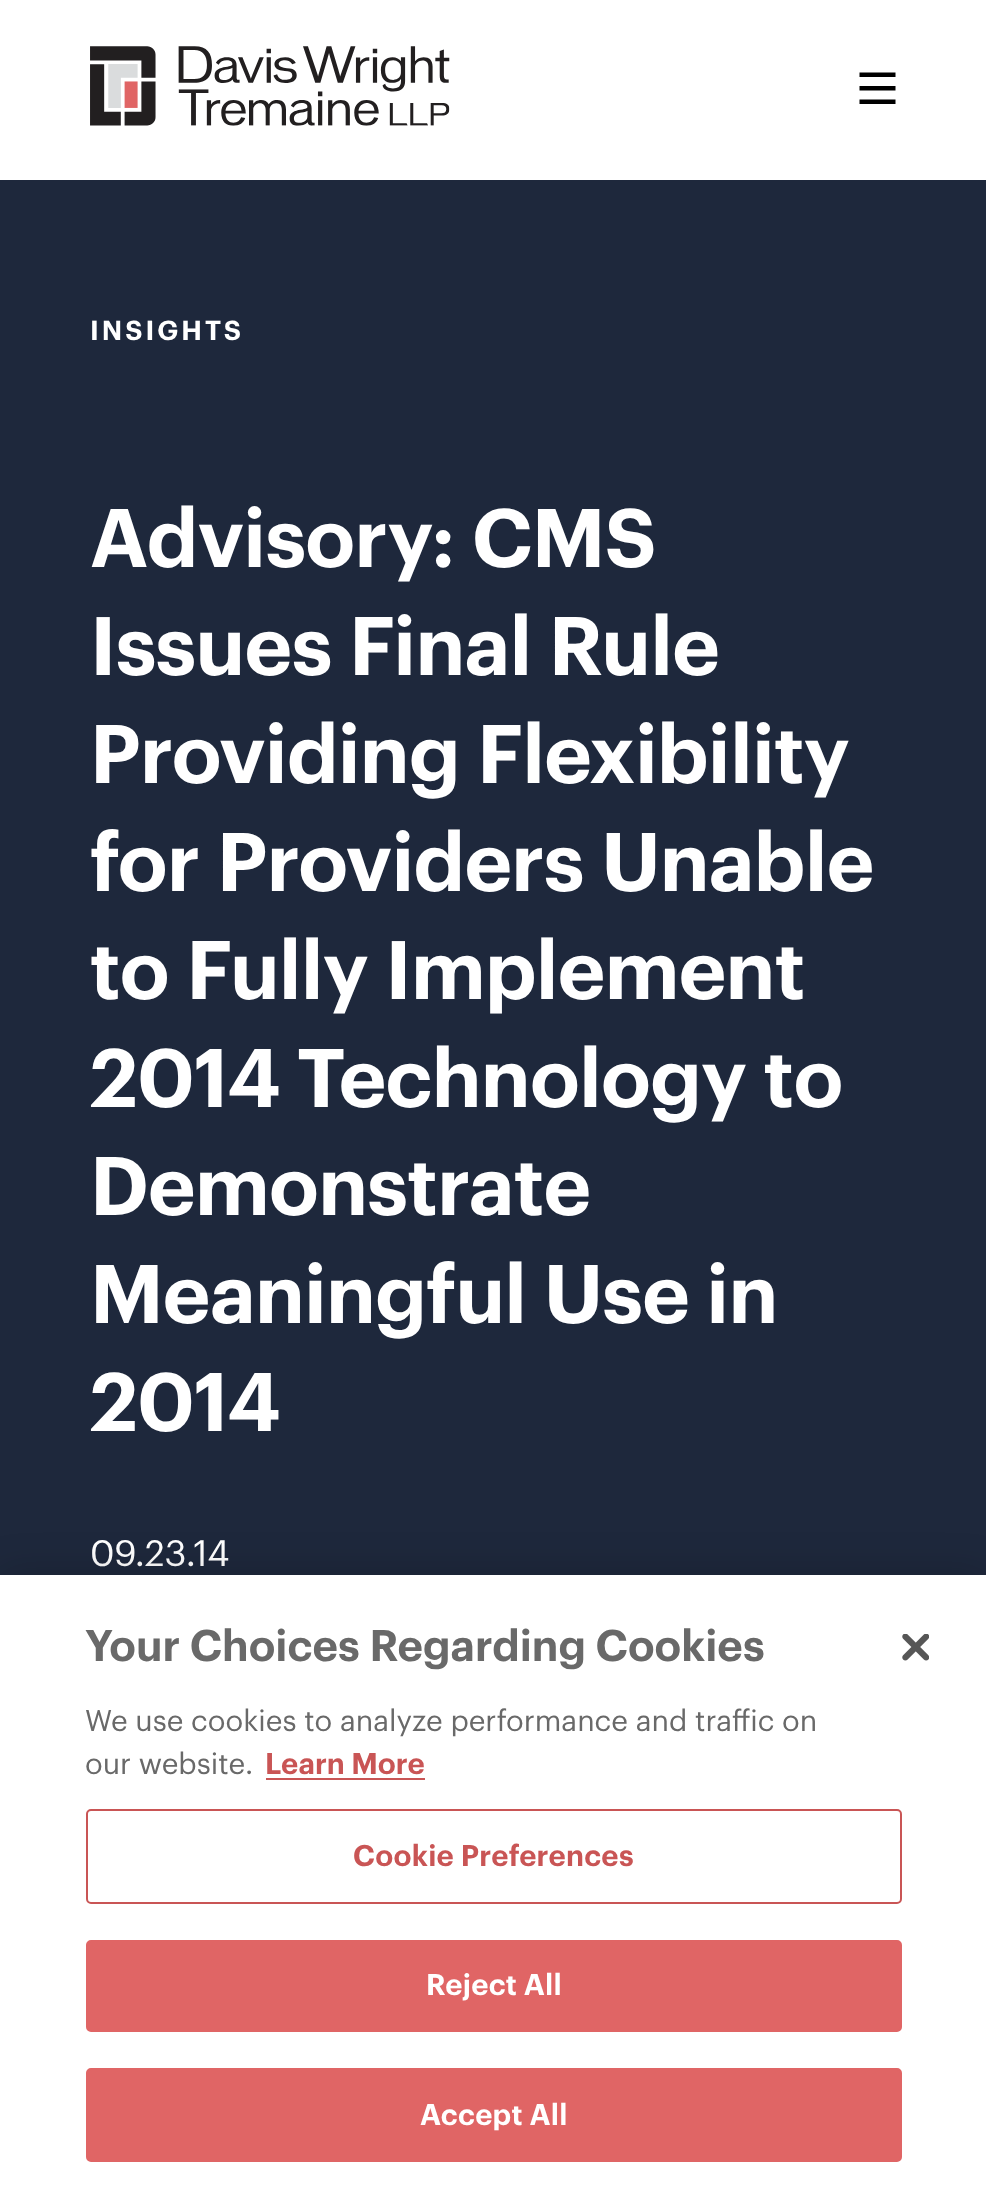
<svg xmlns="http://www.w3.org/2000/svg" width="986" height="2198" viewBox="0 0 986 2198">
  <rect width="100%" height="100%" fill="rgb(30,40,60)"/>
  <rect x="0" y="0" width="986" height="180" fill="rgb(255,255,255)"/>
  <image x="90" y="46" width="360" height="80" href="pic1.png"/>
  <path d="M895.5 86V90.5H859.5V86ZM895.5 72.5V77H859.5V72.5ZM895.5 99.5V104H859.5V99.5Z" fill="rgb(0,0,0)"/>
  <text x="90" y="340" font-family="Graphik" font-size="27" font-weight="600" letter-spacing="3" fill="rgb(255,255,255)">INSIGHTS</text>
  <g font-family="Graphik" font-size="81" font-weight="600" letter-spacing="-0.7" fill="rgb(255,255,255)">
    <text>
      <tspan x="90" y="567">Advisory: CMS</tspan>
      <tspan x="90" y="675">Issues Final Rule</tspan>
      <tspan x="90" y="783">Providing Flexibility</tspan>
      <tspan x="90" y="891">for Providers Unable</tspan>
      <tspan x="90" y="999">to Fully Implement</tspan>
      <tspan x="90" y="1107">2014 Technology to</tspan>
      <tspan x="90" y="1215">Demonstrate</tspan>
      <tspan x="90" y="1323">Meaningful Use in</tspan>
      <tspan x="90" y="1431">2014</tspan>
    </text>
  </g>
  <text x="90" y="1566" font-family="Graphik" font-size="36" fill="rgb(255,255,255)">09.23.14</text>
  <rect x="0" y="1575" width="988" height="623" fill="rgba(0,0,0,0.2)" filter="blur(20px)"/>
  <rect x="0" y="1575" width="986" height="623" fill="rgb(255,255,255)"/>
  <text x="85" y="1661" font-family="Graphik" font-size="43.25" font-weight="600" fill="rgb(105,105,105)">Your Choices Regarding Cookies</text>
  <g font-family="Graphik" font-size="29.25" fill="rgb(105,105,105)">
    <text>
      <tspan x="85" y="1731">We use cookies to analyze performance and traffic on</tspan>
      <tspan x="85" y="1774">our website.</tspan>
    </text>
  </g>
  <text x="265" y="1774" font-family="Graphik" font-size="29.25" font-weight="600" fill="rgb(201,85,85)">Learn More</text>
  <rect x="266" y="1778" width="159" height="2" fill="rgb(201,85,85)"/>
  <rect x="87" y="1810" width="814" height="93" rx="4" fill="none" stroke="rgb(201,85,85)" stroke-width="2"/>
  <text x="353" y="1866" font-family="Graphik" font-size="29.25" font-weight="600" letter-spacing="0.25" fill="rgb(201,85,85)">Cookie Preferences</text>
  <rect x="87" y="1941" width="814" height="90" rx="4" fill="rgb(224,101,101)" stroke="rgb(224,101,101)" stroke-width="2"/>
  <text x="426" y="1995" font-family="Graphik" font-size="29.25" font-weight="600" letter-spacing="0.25" fill="rgb(255,255,255)">Reject All</text>
  <rect x="87" y="2069" width="814" height="92" rx="4" fill="rgb(224,101,101)" stroke="rgb(224,101,101)" stroke-width="2"/>
  <text x="420" y="2125" font-family="Graphik" font-size="29.25" font-weight="600" letter-spacing="0.25" fill="rgb(255,255,255)">Accept All</text>
  <image x="902" y="1634" width="27" height="27" href="pic2.png"/>
</svg>
